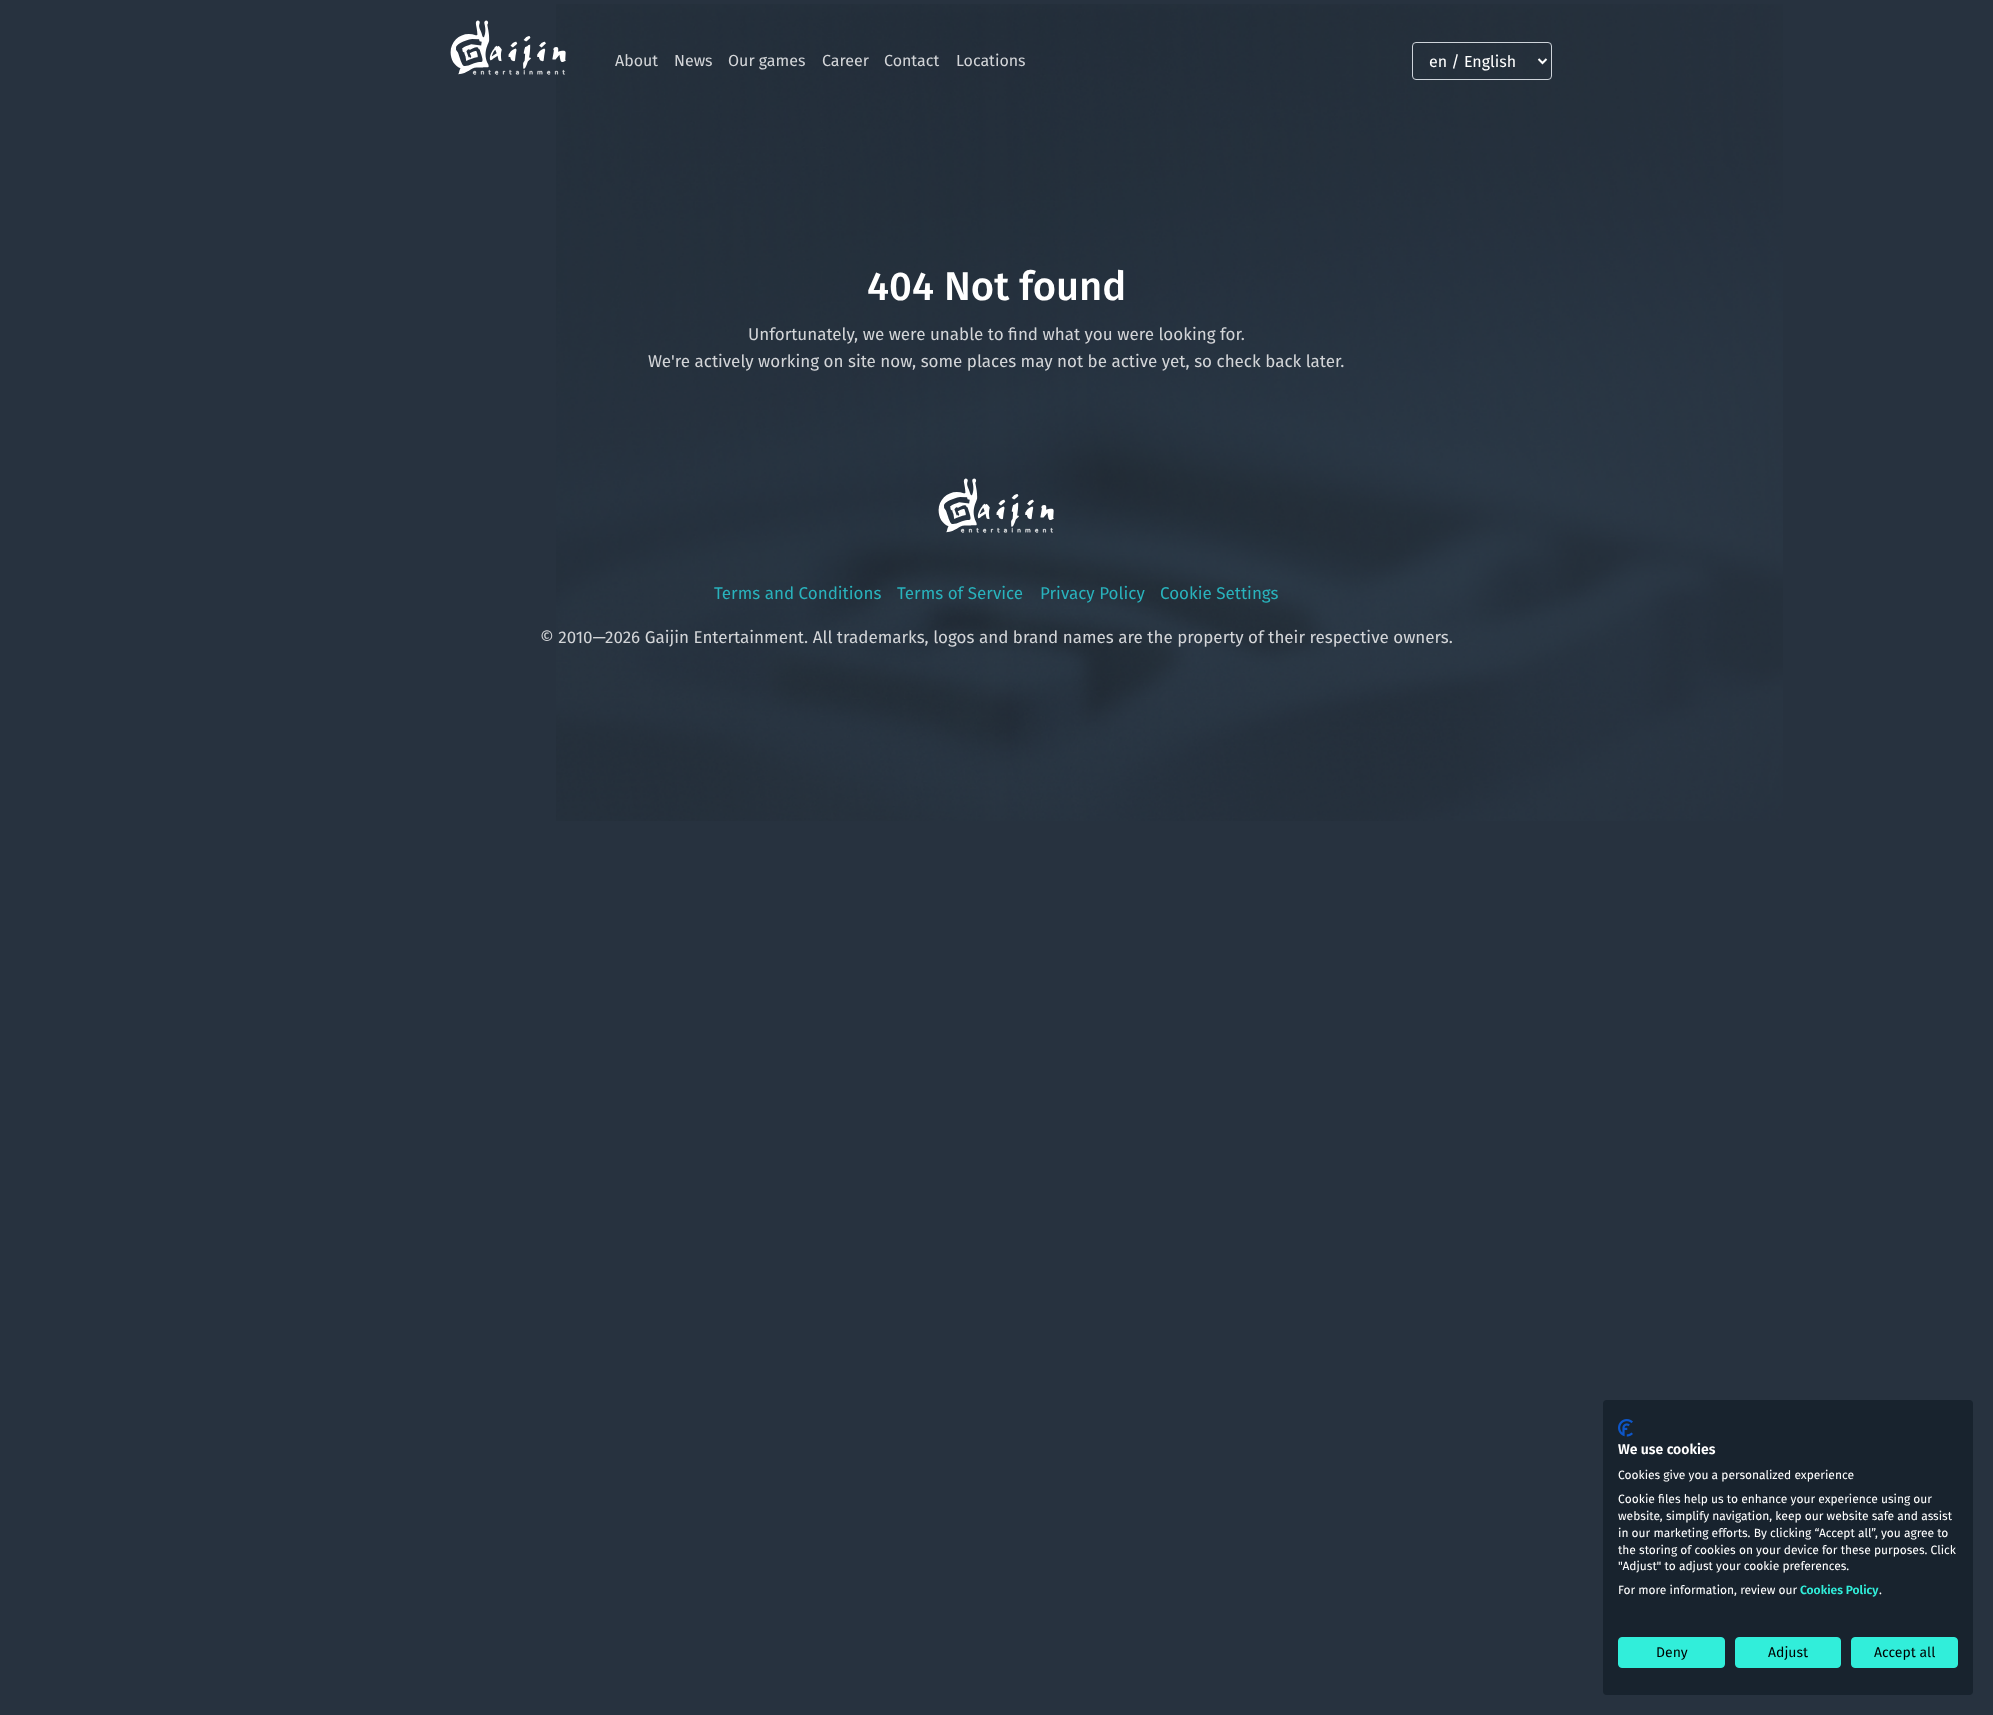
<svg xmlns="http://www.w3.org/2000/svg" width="1993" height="1715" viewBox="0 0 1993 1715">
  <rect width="100%" height="100%" fill="rgb(39,50,63)"/>
  <image x="556" y="4" width="1227" height="817" href="pic1.png"/>
  <image x="450" y="20" width="116" height="55" href="pic2.png"/>
  <g font-family="Fira Sans" font-size="16" fill="rgb(211,213,216)">
    <text x="615" y="66">About</text>
    <text x="674" y="66">News</text>
    <text x="728" y="66">Our games</text>
    <text x="822" y="66">Career</text>
    <text x="884" y="66">Contact</text>
    <text x="956" y="66">Locations</text>
  </g>
  <rect x="1412.5" y="42.5" width="139" height="37" rx="3.5" fill="none" stroke="rgb(206,212,218)"/>
  <path d="M1538.5 59L1542.5 63L1546.5 59" fill="none" stroke="rgb(255,255,255)" stroke-width="2"/>
  <text x="1429" y="67" font-family="Fira Sans" font-size="16" fill="rgb(255,255,255)">en / English</text>
  <text x="867" y="300" font-family="Fira Sans" font-size="40" font-weight="500" fill="rgb(255,255,255)">404 Not found</text>
  <g font-family="Fira Sans" font-size="17" fill="rgb(211,213,216)">
    <text x="748" y="340">Unfortunately, we were unable to find what you were looking for.</text>
    <text x="648" y="367">We're actively working on site now, some places may not be active yet, so check back later.</text>
  </g>
  <image x="938" y="478" width="116" height="55" href="pic3.png"/>
  <g font-family="Fira Sans" font-size="17" fill="rgb(41,178,188)">
    <text x="714" y="599">Terms and Conditions</text>
    <text x="897" y="599">Terms of Service</text>
    <text x="1040" y="599">Privacy Policy</text>
    <text x="1160" y="599">Cookie Settings</text>
  </g>
  <text x="540" y="643" font-family="Fira Sans" font-size="17" fill="rgb(211,213,216)">© 2010—2026 Gaijin Entertainment. All trademarks, logos and brand names are the property of their respective owners.</text>
  <rect x="1603" y="1400" width="370" height="295" rx="4" fill="rgb(24,35,46)"/>
  <image x="1618" y="1419" width="15" height="18" href="pic4.png"/>
  <text x="1618" y="1454" font-family="Fira Sans" font-size="14" font-weight="600" fill="rgb(255,255,255)">We use cookies</text>
  <g font-family="Fira Sans" font-size="12" fill="rgb(255,255,255)">
    <text x="1618" y="1479">Cookies give you a personalized experience</text>
    <text>
      <tspan x="1618" y="1503">Сookie files help us to enhance your experience using our</tspan>
      <tspan x="1618" y="1520">website, simplify navigation, keep our website safe and assist</tspan>
      <tspan x="1618" y="1537">in our marketing efforts. By clicking “Accept all”, you agree to</tspan>
      <tspan x="1618" y="1554">the storing of cookies on your device for these purposes. Click</tspan>
      <tspan x="1618" y="1570">"Adjust" to adjust your cookie preferences.</tspan>
    </text>
    <text x="1618" y="1594">For more information, review our</text>
  </g>
  <text x="1800" y="1594" font-family="Fira Sans" font-size="12" font-weight="600" fill="rgb(49,238,218)">Cookies Policy</text>
  <text x="1879" y="1594" font-family="Fira Sans" font-size="12" fill="rgb(255,255,255)">.</text>
  <rect x="1618.5" y="1637.5" width="106" height="30" rx="3.5" fill="rgb(49,238,218)" stroke="rgb(49,238,218)"/>
  <text x="1656" y="1657" font-family="Fira Sans" font-size="14" fill="rgb(0,0,0)">Deny</text>
  <rect x="1735.5" y="1637.5" width="105" height="30" rx="3.5" fill="rgb(49,238,218)" stroke="rgb(49,238,218)"/>
  <text x="1768" y="1657" font-family="Fira Sans" font-size="14" fill="rgb(0,0,0)">Adjust</text>
  <rect x="1851.5" y="1637.5" width="106" height="30" rx="3.5" fill="rgb(49,238,218)" stroke="rgb(49,238,218)"/>
  <text x="1874" y="1657" font-family="Fira Sans" font-size="14" fill="rgb(0,0,0)">Accept all</text>
</svg>
